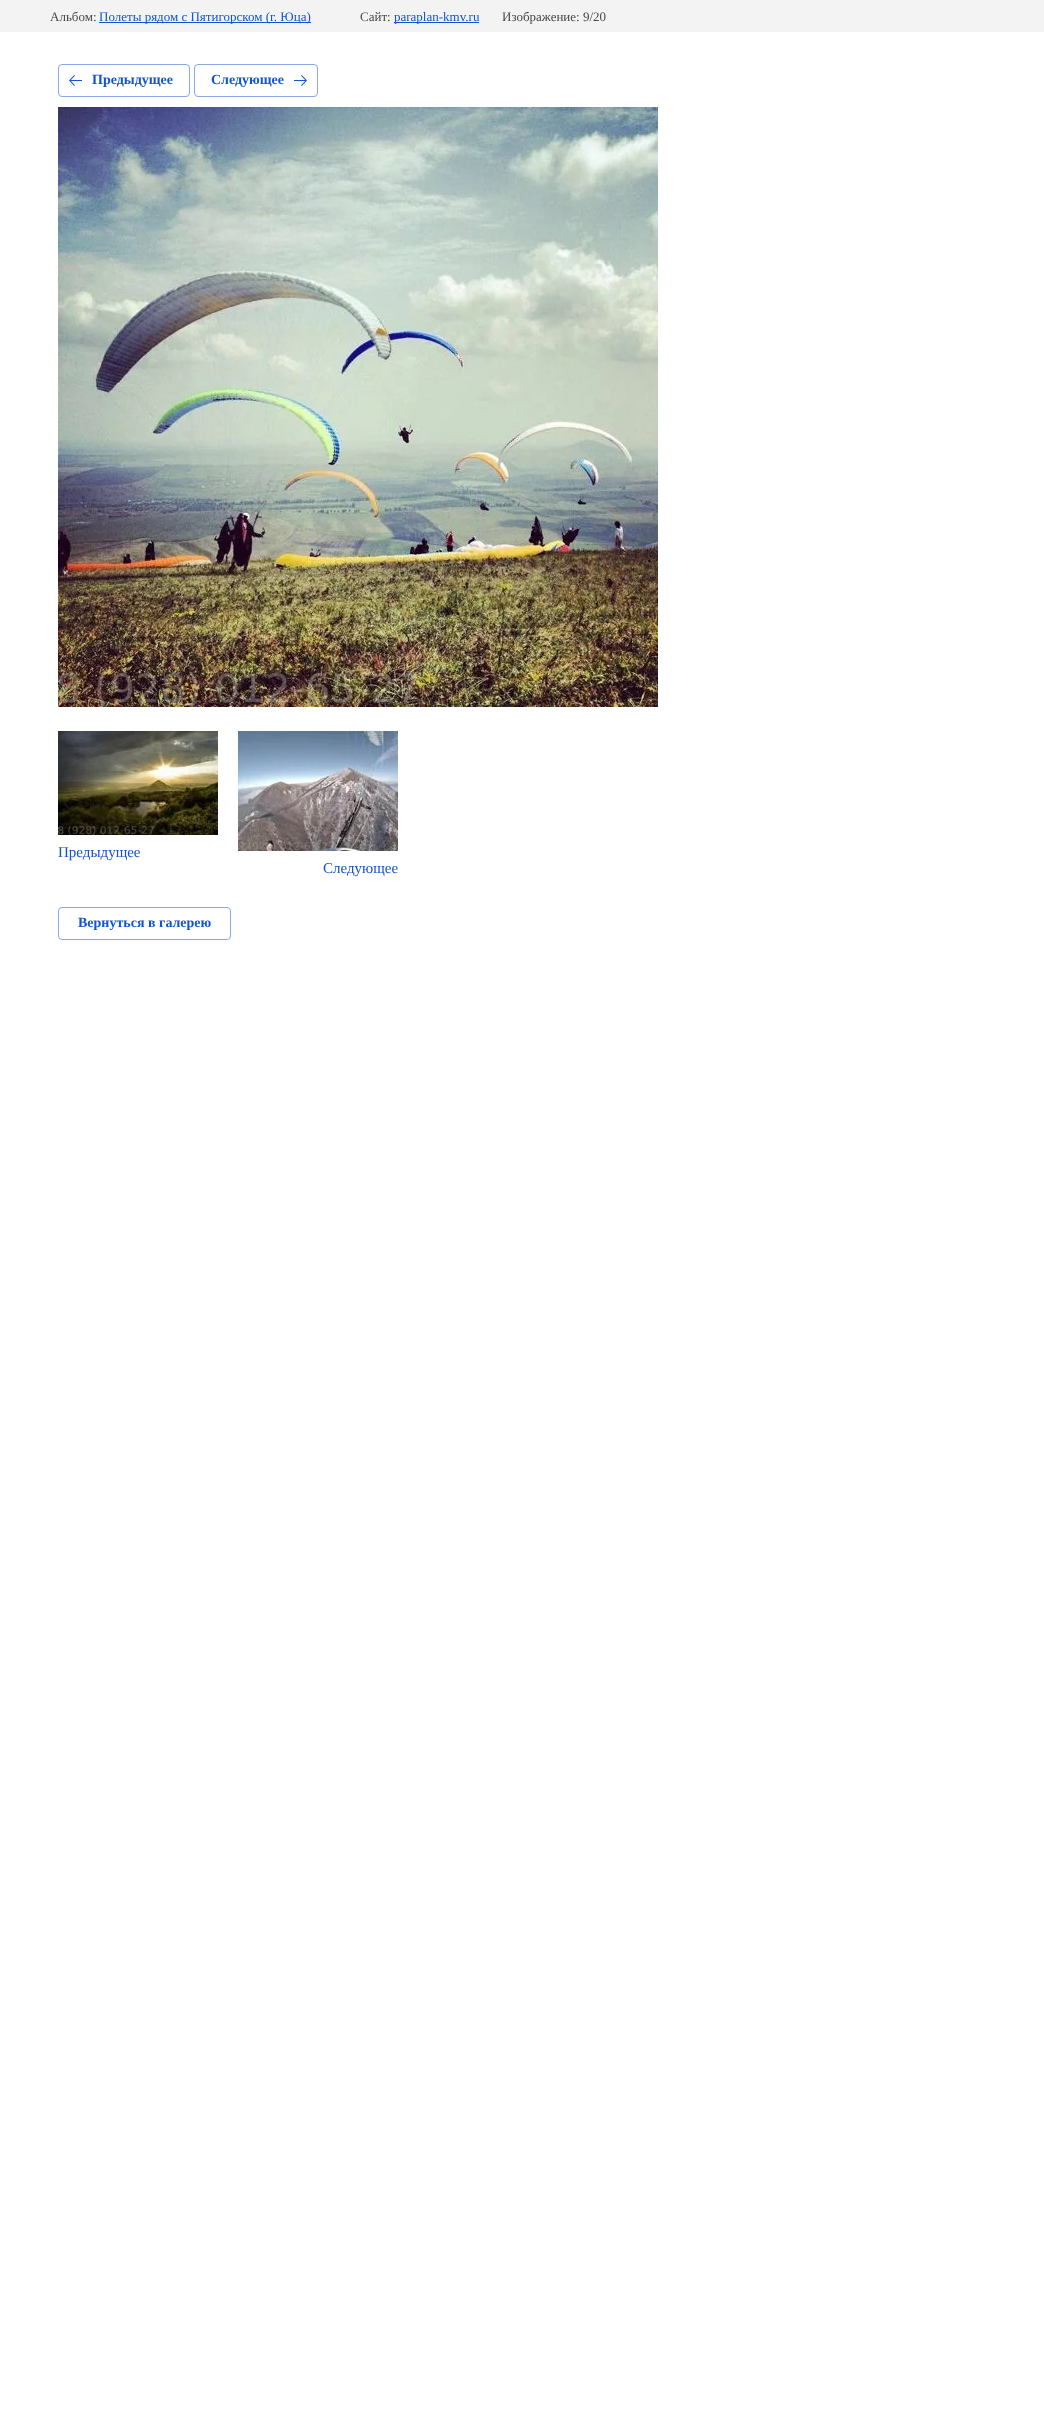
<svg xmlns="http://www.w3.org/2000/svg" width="1044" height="2424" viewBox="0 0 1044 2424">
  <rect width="100%" height="100%" fill="rgb(255,255,255)"/>
  <rect x="0" y="0" width="1044" height="32" fill="rgb(243,243,243)"/>
  <text x="50" y="21" font-family="Liberation Serif" font-size="13" fill="rgb(72,72,72)">Альбом:</text>
  <rect x="99" y="22" width="212" height="1" fill="rgb(17,85,204)"/>
  <text x="99" y="21" font-family="Liberation Serif" font-size="13" fill="rgb(17,85,204)">Полеты рядом с Пятигорском (г. Юца)</text>
  <text x="360" y="21" font-family="Liberation Serif" font-size="13" fill="rgb(72,72,72)">Сайт:</text>
  <rect x="394" y="22" width="85" height="1" fill="rgb(17,85,204)"/>
  <text x="394" y="21" font-family="Liberation Serif" font-size="13" fill="rgb(17,85,204)">paraplan-kmv.ru</text>
  <text x="502" y="21" font-family="Liberation Serif" font-size="13" fill="rgb(72,72,72)">Изображение: 9/20</text>
  <rect x="58.5" y="64.5" width="131" height="32" rx="3.5" fill="none" stroke="rgb(136,170,230)"/>
  <image x="69" y="75" width="13" height="11" href="pic1.png"/>
  <text x="92" y="84" font-family="Liberation Serif" font-size="14" font-weight="bold" fill="rgb(17,85,204)">Предыдущее</text>
  <rect x="194.5" y="64.5" width="123" height="32" rx="3.5" fill="none" stroke="rgb(136,170,230)"/>
  <text x="211" y="84" font-family="Liberation Serif" font-size="14" font-weight="bold" fill="rgb(17,85,204)">Следующее</text>
  <image x="294" y="75" width="13" height="11" href="pic2.png"/>
  <image x="58" y="107" width="600" height="600" href="pic3.png"/>
  <image x="58" y="731" width="160" height="104" href="pic4.png"/>
  <text x="58" y="857" font-family="Liberation Serif" font-size="15" fill="rgb(17,85,204)">Предыдущее</text>
  <image x="238" y="731" width="160" height="120" href="pic5.png"/>
  <text x="323" y="873" font-family="Liberation Serif" font-size="15" fill="rgb(17,85,204)">Следующее</text>
  <rect x="58.5" y="907.5" width="172" height="32" rx="3.5" fill="none" stroke="rgb(136,170,230)"/>
  <text x="78" y="927" font-family="Liberation Serif" font-size="14" font-weight="bold" fill="rgb(17,85,204)">Вернуться в галерею</text>
</svg>
